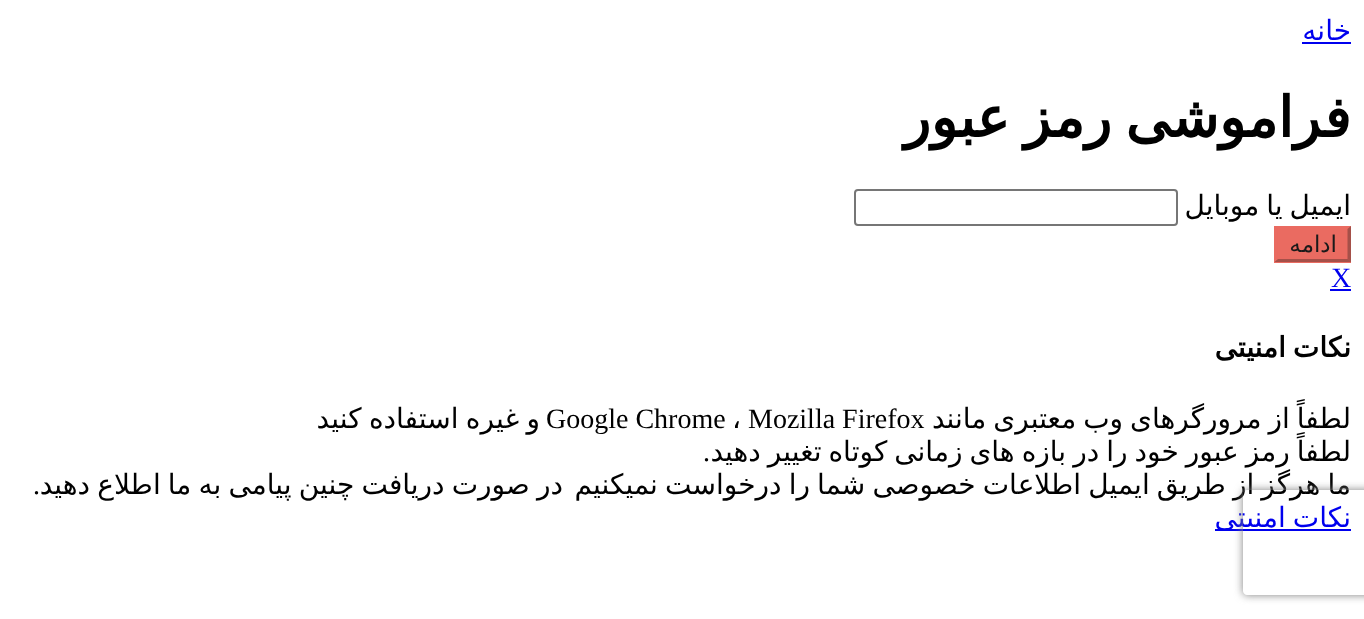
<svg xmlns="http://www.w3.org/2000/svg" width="1364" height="619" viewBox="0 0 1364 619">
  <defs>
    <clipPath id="clip1"><path d="M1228 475H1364V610H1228ZM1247 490H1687C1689 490 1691 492 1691 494V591C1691 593 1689 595 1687 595H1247C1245 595 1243 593 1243 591V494C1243 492 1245 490 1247 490Z" clip-rule="evenodd"/></clipPath>
  </defs>
  <rect width="100%" height="100%" fill="rgb(255,255,255)"/>
  <text x="1351" y="40" font-family="DejaVu Sans" font-size="28" direction="rtl" fill="rgb(0,0,238)">خانه</text>
  <rect x="1302" y="42" width="49" height="2" fill="rgb(0,0,238)"/>
  <text x="1351" y="137" word-spacing="-4" font-family="DejaVu Sans" font-size="56" font-weight="bold" direction="rtl" fill="rgb(0,0,0)">فراموشی رمز عبور</text>
  <text x="1351" y="215" word-spacing="-1.9" font-family="DejaVu Sans" font-size="28" direction="rtl" fill="rgb(0,0,0)">ایمیل یا موبایل</text>
  <rect x="855" y="190" width="322" height="35" rx="3" fill="none" stroke="rgb(118,118,118)" stroke-width="2"/>
  <rect x="1274" y="226" width="77" height="37" fill="rgb(234,107,97)"/>
  <path d="M1351 226V262.5L1347.5 259V229Z" fill="rgb(165,80,73)"/>
  <path d="M1351 262H1274L1278 259H1348Z" fill="rgb(165,80,73)"/>
  <path d="M1274 262.5V226L1277.5 229V259Z" fill="rgb(234,107,97)"/>
  <text x="1337" y="252" font-family="DejaVu Sans" font-size="23" direction="rtl" fill="rgb(26,26,26)">ادامه</text>
  <text x="1331" y="287" font-family="Liberation Serif" font-size="28" fill="rgb(0,0,238)">X</text>
  <rect x="1330" y="289" width="21" height="2" fill="rgb(0,0,238)"/>
  <text x="1351" y="357" word-spacing="-1.9" font-family="DejaVu Sans" font-size="28" font-weight="bold" direction="rtl" fill="rgb(0,0,0)">نکات امنیتی</text>
  <text x="1351" y="428" word-spacing="-1.9" font-family="DejaVu Sans" font-size="28" direction="rtl" fill="rgb(0,0,0)">لطفاً از مرورگرهای وب معتبری مانند</text>
  <text x="748" y="428" font-family="Liberation Serif" font-size="28" fill="rgb(0,0,0)">Mozilla Firefox</text>
  <text x="732" y="428" font-family="DejaVu Sans" font-size="28" fill="rgb(0,0,0)">،</text>
  <text x="546" y="428" font-family="Liberation Serif" font-size="28" fill="rgb(0,0,0)">Google Chrome</text>
  <g font-family="DejaVu Sans" font-size="28" direction="rtl" fill="rgb(0,0,0)">
    <text x="540" y="428" word-spacing="-1.5">و غیره استفاده کنید</text>
    <text x="1351" y="461" word-spacing="-1.9">لطفاً رمز عبور خود را در بازه های زمانی کوتاه تغییر دهید</text>
  </g>
  <text x="710" y="461" font-family="Liberation Serif" font-size="28" direction="rtl" fill="rgb(0,0,0)">.</text>
  <g font-family="DejaVu Sans" font-size="28" direction="rtl" fill="rgb(0,0,0)">
    <text x="1351" y="494" word-spacing="-1.75">ما هرگز از طریق ایمیل اطلاعات خصوصی شما را درخواست نمیکنیم</text>
    <text x="563" y="494" word-spacing="-1.75">در صورت دریافت چنین پیامی به ما اطلاع دهید</text>
  </g>
  <text x="40" y="494" font-family="Liberation Serif" font-size="28" direction="rtl" fill="rgb(0,0,0)">.</text>
  <rect x="1215" y="529" width="136" height="2" fill="rgb(0,0,238)"/>
  <text x="1351" y="527" word-spacing="-1.9" font-family="DejaVu Sans" font-size="28" direction="rtl" fill="rgb(0,0,238)">نکات امنیتی</text>
  <g clip-path="url(#clip1)">
    <rect x="1243" y="490" width="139" height="105" rx="4" fill="rgb(128,128,128)" filter="blur(4.5px)"/>
  </g>
</svg>
